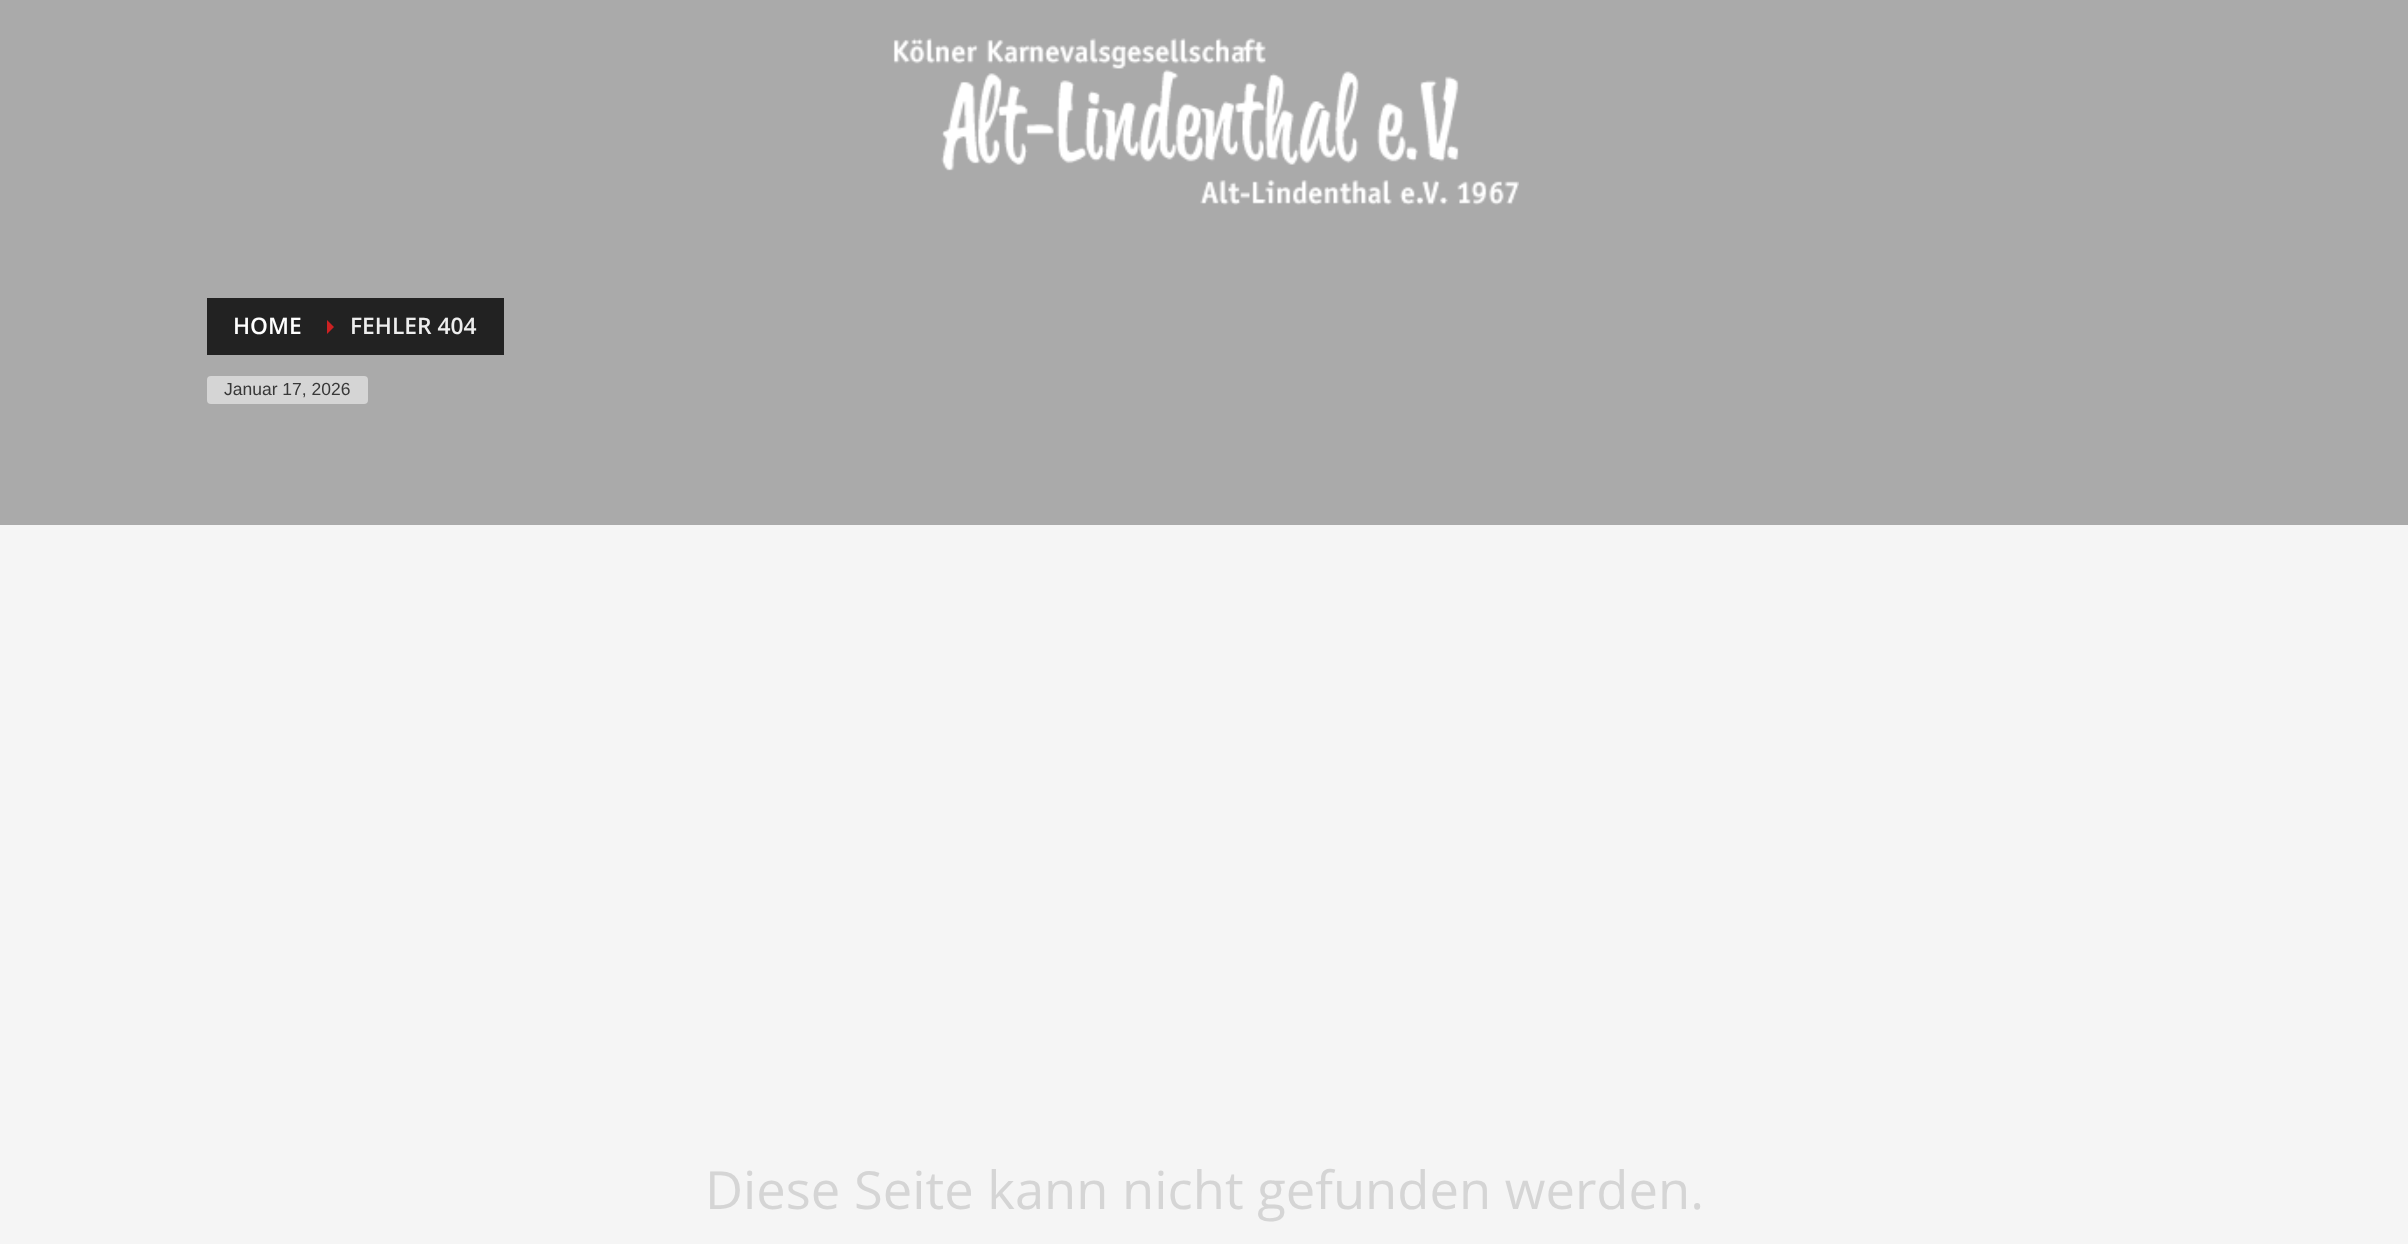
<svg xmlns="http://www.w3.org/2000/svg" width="2408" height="1244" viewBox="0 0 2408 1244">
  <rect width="100%" height="100%" fill="rgb(245,245,245)"/>
  <rect x="0" y="0" width="2408" height="525" fill="rgb(170,170,170)"/>
  <image x="893" y="38" width="626" height="167" href="pic1.png"/>
  <rect x="207" y="298" width="297" height="57" fill="rgb(34,34,34)"/>
  <text x="233" y="334" font-family="Open Sans" font-size="22.75" font-weight="600" fill="rgb(255,255,255)">HOME</text>
  <path d="M327 334V320L334 327Z" fill="rgb(205,33,34)"/>
  <text x="350" y="334" font-family="Open Sans" font-size="22.75" font-weight="600" fill="rgb(238,238,238)">FEHLER 404</text>
  <rect x="207" y="376" width="161" height="28" rx="4" fill="rgb(213,213,213)"/>
  <text x="224" y="395" font-family="Liberation Sans" font-size="17.5" fill="rgb(56,56,56)">Januar 17, 2026</text>
  <text x="705" y="1209" font-family="Open Sans" font-size="52.5" fill="rgb(213,213,213)">Diese Seite kann nicht gefunden werden.</text>
</svg>
